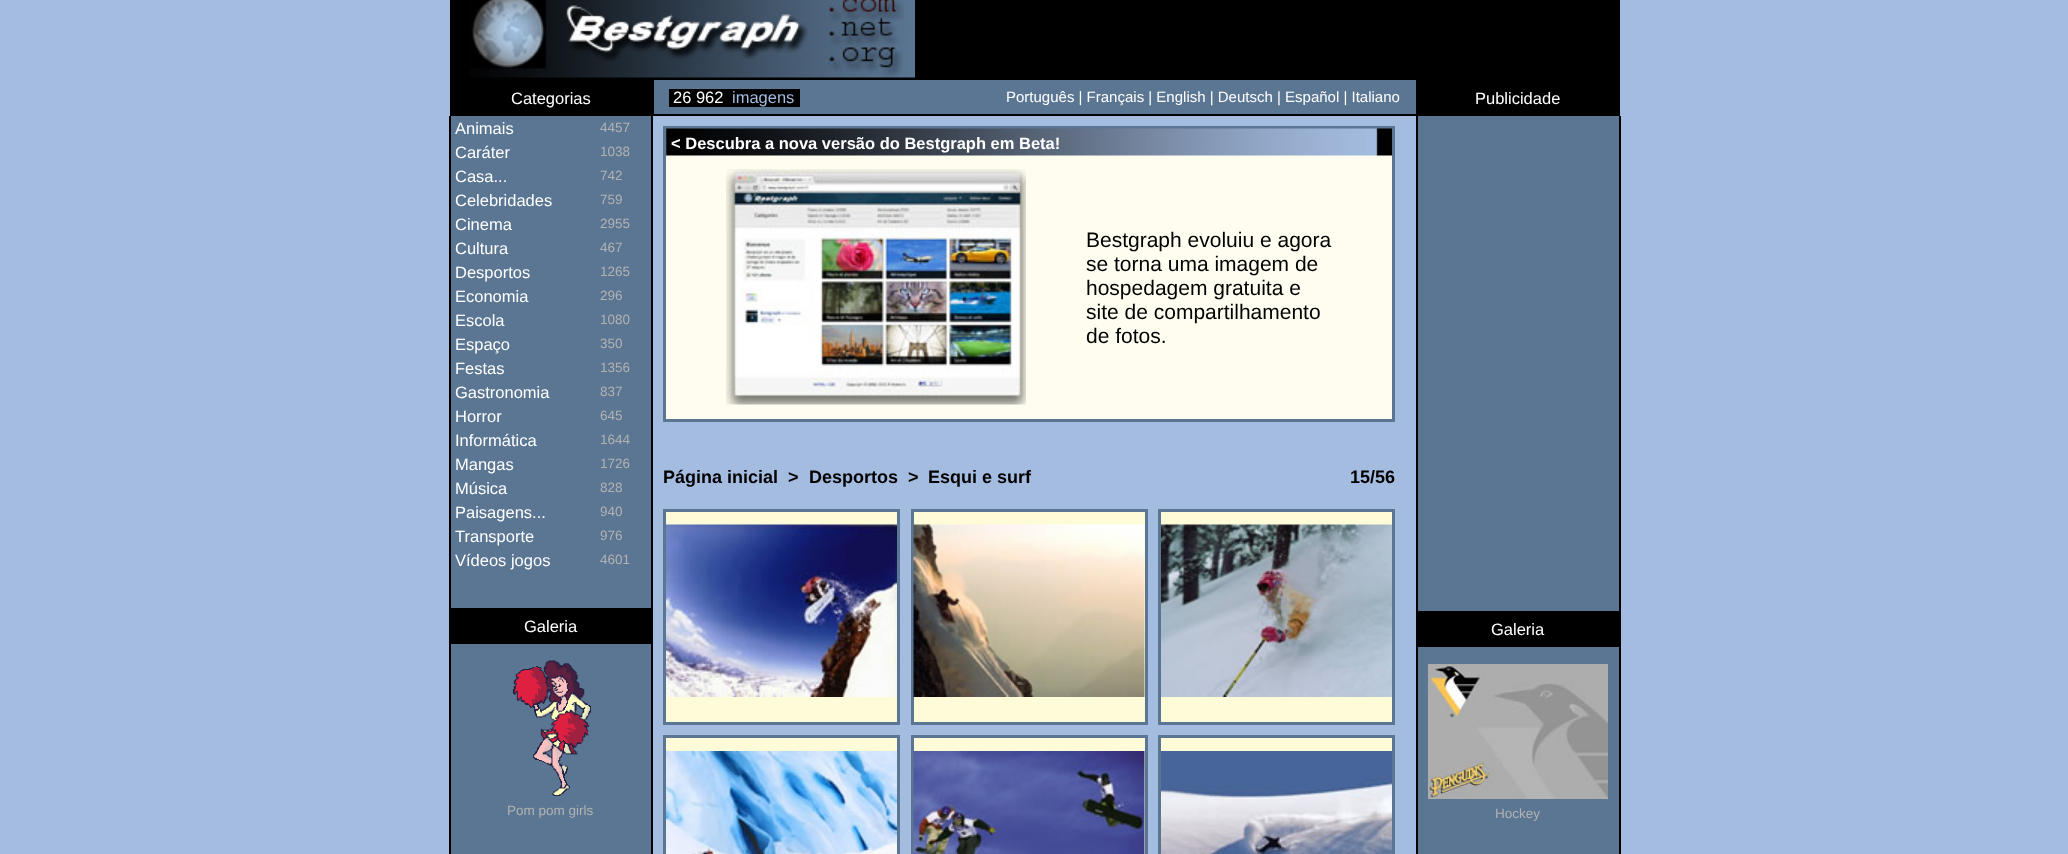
<svg xmlns="http://www.w3.org/2000/svg" width="2068" height="854" viewBox="0 0 2068 854">
  <rect width="100%" height="100%" fill="rgb(164,188,224)"/>
  <rect x="450" y="0" width="1170" height="80" fill="rgb(0,0,0)"/>
  <image x="470" y="0" width="445" height="78" href="pic1.png"/>
  <rect x="654" y="80" width="762" height="34" fill="rgb(91,118,147)"/>
  <rect x="450" y="80" width="204" height="36" fill="rgb(0,0,0)"/>
  <text x="511" y="104" font-family="Liberation Sans" font-size="16.5" fill="rgb(255,255,255)">Categorias</text>
  <rect x="669" y="89" width="131" height="18" fill="rgb(0,0,0)"/>
  <text x="673" y="103" font-family="Liberation Sans" font-size="16.5" fill="rgb(255,255,255)">26 962</text>
  <text x="732" y="103" font-family="Liberation Sans" font-size="16.5" fill="rgb(164,188,224)">imagens</text>
  <text x="1006" y="102" font-family="Liberation Sans" font-size="15" fill="rgb(255,255,255)">Português | Français | English | Deutsch | Español | Italiano</text>
  <rect x="1416" y="80" width="204" height="36" fill="rgb(0,0,0)"/>
  <text x="1475" y="104" font-family="Liberation Sans" font-size="16.5" fill="rgb(255,255,255)">Publicidade</text>
  <rect x="654" y="114" width="762" height="2" fill="rgb(0,0,0)"/>
  <rect x="451" y="116" width="1168" height="738" fill="rgb(91,118,147)"/>
  <rect x="651" y="116" width="2" height="738" fill="rgb(0,0,0)"/>
  <rect x="449" y="116" width="2" height="738" fill="rgb(0,0,0)"/>
  <text x="455" y="134" font-family="Liberation Sans" font-size="16.5" fill="rgb(255,255,255)">Animais</text>
  <text x="600" y="132" font-family="Liberation Sans" font-size="13.5" fill="rgb(178,178,178)">4457</text>
  <text x="455" y="158" font-family="Liberation Sans" font-size="16.5" fill="rgb(255,255,255)">Caráter</text>
  <text x="600" y="156" font-family="Liberation Sans" font-size="13.5" fill="rgb(178,178,178)">1038</text>
  <text x="455" y="182" font-family="Liberation Sans" font-size="16.5" fill="rgb(255,255,255)">Casa...</text>
  <text x="600" y="180" font-family="Liberation Sans" font-size="13.5" fill="rgb(178,178,178)">742</text>
  <text x="455" y="206" font-family="Liberation Sans" font-size="16.5" fill="rgb(255,255,255)">Celebridades</text>
  <text x="600" y="204" font-family="Liberation Sans" font-size="13.5" fill="rgb(178,178,178)">759</text>
  <text x="455" y="230" font-family="Liberation Sans" font-size="16.5" fill="rgb(255,255,255)">Cinema</text>
  <text x="600" y="228" font-family="Liberation Sans" font-size="13.5" fill="rgb(178,178,178)">2955</text>
  <text x="455" y="254" font-family="Liberation Sans" font-size="16.5" fill="rgb(255,255,255)">Cultura</text>
  <text x="600" y="252" font-family="Liberation Sans" font-size="13.5" fill="rgb(178,178,178)">467</text>
  <text x="455" y="278" font-family="Liberation Sans" font-size="16.5" fill="rgb(255,255,255)">Desportos</text>
  <text x="600" y="276" font-family="Liberation Sans" font-size="13.5" fill="rgb(178,178,178)">1265</text>
  <text x="455" y="302" font-family="Liberation Sans" font-size="16.5" fill="rgb(255,255,255)">Economia</text>
  <text x="600" y="300" font-family="Liberation Sans" font-size="13.5" fill="rgb(178,178,178)">296</text>
  <text x="455" y="326" font-family="Liberation Sans" font-size="16.5" fill="rgb(255,255,255)">Escola</text>
  <text x="600" y="324" font-family="Liberation Sans" font-size="13.5" fill="rgb(178,178,178)">1080</text>
  <text x="455" y="350" font-family="Liberation Sans" font-size="16.5" fill="rgb(255,255,255)">Espaço</text>
  <text x="600" y="348" font-family="Liberation Sans" font-size="13.5" fill="rgb(178,178,178)">350</text>
  <text x="455" y="374" font-family="Liberation Sans" font-size="16.5" fill="rgb(255,255,255)">Festas</text>
  <text x="600" y="372" font-family="Liberation Sans" font-size="13.5" fill="rgb(178,178,178)">1356</text>
  <text x="455" y="398" font-family="Liberation Sans" font-size="16.5" fill="rgb(255,255,255)">Gastronomia</text>
  <text x="600" y="396" font-family="Liberation Sans" font-size="13.5" fill="rgb(178,178,178)">837</text>
  <text x="455" y="422" font-family="Liberation Sans" font-size="16.5" fill="rgb(255,255,255)">Horror</text>
  <text x="600" y="420" font-family="Liberation Sans" font-size="13.5" fill="rgb(178,178,178)">645</text>
  <text x="455" y="446" font-family="Liberation Sans" font-size="16.5" fill="rgb(255,255,255)">Informática</text>
  <text x="600" y="444" font-family="Liberation Sans" font-size="13.5" fill="rgb(178,178,178)">1644</text>
  <text x="455" y="470" font-family="Liberation Sans" font-size="16.5" fill="rgb(255,255,255)">Mangas</text>
  <text x="600" y="468" font-family="Liberation Sans" font-size="13.5" fill="rgb(178,178,178)">1726</text>
  <text x="455" y="494" font-family="Liberation Sans" font-size="16.5" fill="rgb(255,255,255)">Música</text>
  <text x="600" y="492" font-family="Liberation Sans" font-size="13.5" fill="rgb(178,178,178)">828</text>
  <text x="455" y="518" font-family="Liberation Sans" font-size="16.5" fill="rgb(255,255,255)">Paisagens...</text>
  <text x="600" y="516" font-family="Liberation Sans" font-size="13.5" fill="rgb(178,178,178)">940</text>
  <text x="455" y="542" font-family="Liberation Sans" font-size="16.5" fill="rgb(255,255,255)">Transporte</text>
  <text x="600" y="540" font-family="Liberation Sans" font-size="13.5" fill="rgb(178,178,178)">976</text>
  <text x="455" y="566" font-family="Liberation Sans" font-size="16.5" fill="rgb(255,255,255)">Vídeos jogos</text>
  <text x="600" y="564" font-family="Liberation Sans" font-size="13.5" fill="rgb(178,178,178)">4601</text>
  <rect x="451" y="608" width="200" height="36" fill="rgb(0,0,0)"/>
  <text x="524" y="632" font-family="Liberation Sans" font-size="16.5" fill="rgb(255,255,255)">Galeria</text>
  <image x="512" y="660" width="79" height="136" href="pic2.png"/>
  <text x="507" y="815" font-family="Liberation Sans" font-size="13.5" fill="rgb(178,178,178)">Pom pom girls</text>
  <rect x="653" y="116" width="763" height="738" fill="rgb(164,188,224)"/>
  <rect x="666" y="155" width="726" height="264" fill="rgb(254,253,239)"/>
  <rect x="664.5" y="127.5" width="729" height="293" fill="none" stroke="rgb(91,118,147)" stroke-width="3"/>
  <image x="666" y="128" width="726" height="28" href="pic3.png"/>
  <text x="671" y="149" font-family="Liberation Sans" font-size="16.5" font-weight="bold" fill="rgb(255,255,255)">&lt; Descubra a nova versão do Bestgraph em Beta!</text>
  <image x="726" y="169" width="300" height="236" href="pic4.png"/>
  <g font-family="Liberation Sans" font-size="21" fill="rgb(0,0,0)">
    <text>
      <tspan x="1086" y="247">Bestgraph evoluiu e agora</tspan>
      <tspan x="1086" y="271">se torna uma imagem de</tspan>
      <tspan x="1086" y="295">hospedagem gratuita e</tspan>
      <tspan x="1086" y="319">site de compartilhamento</tspan>
      <tspan x="1086" y="343">de fotos.</tspan>
    </text>
  </g>
  <g font-family="Liberation Sans" font-size="18" font-weight="bold" fill="rgb(0,0,0)">
    <text x="663" y="483">Página inicial</text>
    <text x="788" y="483">&gt;</text>
    <text x="809" y="483">Desportos</text>
    <text x="908" y="483">&gt;</text>
    <text x="928" y="483">Esqui e surf</text>
    <text x="1350" y="483">15/56</text>
  </g>
  <rect x="664.5" y="510.5" width="234" height="213" fill="rgb(254,251,217)" stroke="rgb(91,118,147)" stroke-width="3"/>
  <image x="666" y="524" width="231" height="173" href="pic5.png"/>
  <rect x="912.5" y="510.5" width="234" height="213" fill="rgb(254,251,217)" stroke="rgb(91,118,147)" stroke-width="3"/>
  <image x="913" y="524" width="232" height="173" href="pic6.png"/>
  <rect x="1159.5" y="510.5" width="234" height="213" fill="rgb(254,251,217)" stroke="rgb(91,118,147)" stroke-width="3"/>
  <image x="1161" y="524" width="231" height="173" href="pic7.png"/>
  <rect x="666" y="738" width="231" height="13" fill="rgb(254,251,217)"/>
  <rect x="664.5" y="736.5" width="234" height="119" fill="none" stroke="rgb(91,118,147)" stroke-width="3"/>
  <image x="666" y="751" width="231" height="103" href="pic8.png"/>
  <rect x="912.5" y="736.5" width="234" height="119" fill="rgb(254,251,217)" stroke="rgb(91,118,147)" stroke-width="3"/>
  <image x="913" y="751" width="232" height="103" href="pic9.png"/>
  <rect x="1161" y="738" width="231" height="13" fill="rgb(254,251,217)"/>
  <rect x="1159.5" y="736.5" width="234" height="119" fill="none" stroke="rgb(91,118,147)" stroke-width="3"/>
  <image x="1161" y="751" width="231" height="103" href="pic10.png"/>
  <rect x="1619" y="116" width="2" height="738" fill="rgb(0,0,0)"/>
  <rect x="1416" y="116" width="2" height="738" fill="rgb(0,0,0)"/>
  <rect x="1418" y="611" width="201" height="36" fill="rgb(0,0,0)"/>
  <text x="1491" y="635" font-family="Liberation Sans" font-size="16.5" fill="rgb(255,255,255)">Galeria</text>
  <image x="1428" y="664" width="180" height="135" href="pic11.png"/>
  <text x="1495" y="818" font-family="Liberation Sans" font-size="13.5" fill="rgb(178,178,178)">Hockey</text>
</svg>
